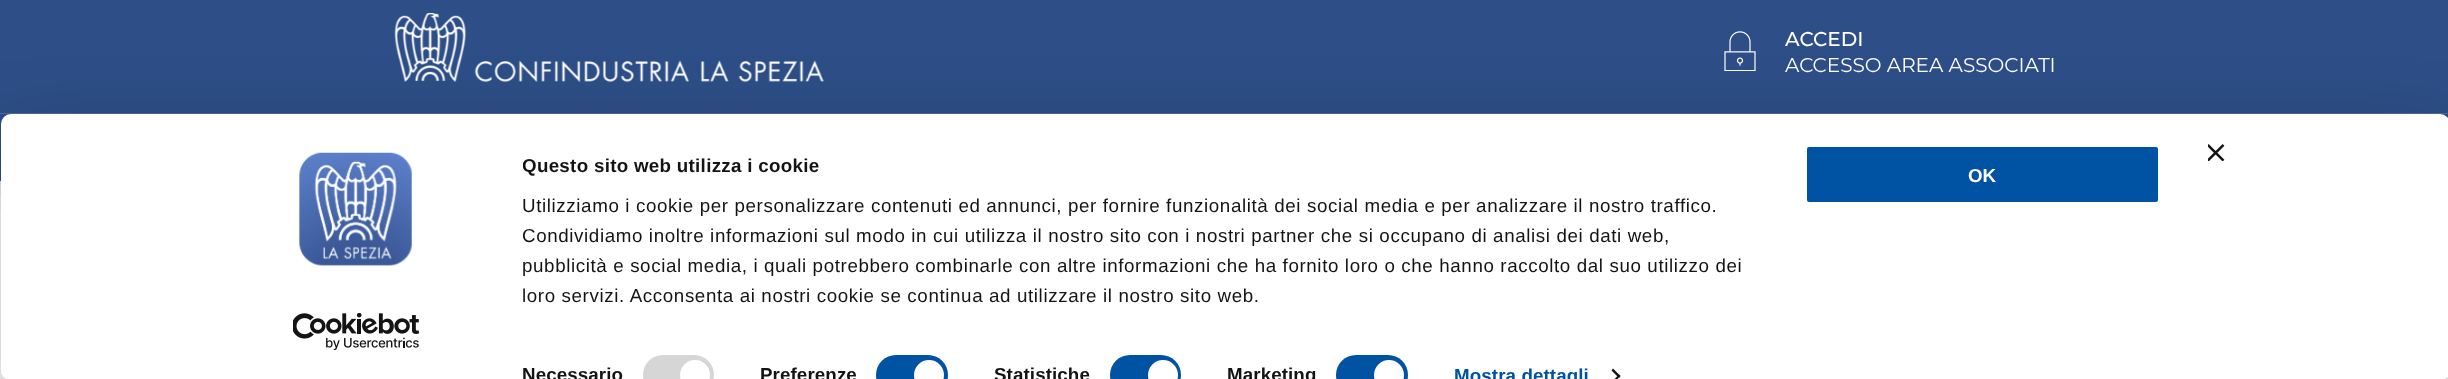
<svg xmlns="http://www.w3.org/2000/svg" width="2448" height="379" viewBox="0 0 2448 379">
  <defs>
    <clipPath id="clip1"><rect x="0" y="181" width="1" height="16"/></clipPath>
    <clipPath id="clip2"><rect x="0" y="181" width="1" height="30"/></clipPath>
    <clipPath id="clip3"><path d="M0 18H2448V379H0ZM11 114H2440C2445.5 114 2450 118.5 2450 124V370C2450 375.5 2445.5 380 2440 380H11C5.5 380 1 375.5 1 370V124C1 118.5 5.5 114 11 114Z" clip-rule="evenodd"/></clipPath>
    <clipPath id="clip4"><rect x="523" y="151" width="1246" height="159"/></clipPath>
  </defs>
  <rect width="100%" height="100%" fill="rgb(255,255,255)"/>
  <rect x="0" y="0" width="2448" height="181" fill="rgb(45,78,135)"/>
  <g clip-path="url(#clip1)">
    <rect x="0" y="6" width="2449" height="182" fill="rgba(0,0,0,0.15)" filter="blur(14px)"/>
  </g>
  <g clip-path="url(#clip2)">
    <rect x="0" y="24" width="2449" height="181" fill="rgba(0,0,0,0.1)" filter="blur(24px)"/>
  </g>
  <image x="394" y="13" width="430" height="70" href="pic1.png"/>
  <image x="1724" y="31" width="32" height="40" href="pic2.png"/>
  <text x="1785" y="46" font-family="Montserrat" font-size="20" font-weight="500" fill="rgb(255,255,255)">ACCEDI</text>
  <text x="1785" y="72" font-family="Montserrat" font-size="20" fill="rgb(255,255,255)">ACCESSO AREA ASSOCIATI</text>
  <rect x="0" y="113" width="2448" height="1" fill="rgb(77,105,153)"/>
  <g clip-path="url(#clip3)">
    <rect x="1" y="151" width="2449" height="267" rx="10" fill="rgba(0,0,0,0.3)" filter="blur(44px)"/>
  </g>
  <rect x="1" y="114" width="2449" height="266" rx="10" fill="rgb(255,255,255)"/>
  <image x="299" y="152" width="113" height="114" href="pic3.png"/>
  <image x="293" y="313" width="127" height="37" href="pic4.png"/>
  <g clip-path="url(#clip4)">
    <text x="522" y="172" font-family="Liberation Sans" font-size="18.75" font-weight="bold" letter-spacing="0.3" fill="rgb(20,20,20)">Questo sito web utilizza i cookie</text>
  </g>
  <g font-family="Liberation Sans" font-size="18.75" letter-spacing="0.62" fill="rgb(20,20,20)">
    <text>
      <tspan x="522" y="212">Utilizziamo i cookie per personalizzare contenuti ed annunci, per fornire funzionalità dei social media e per analizzare il nostro traffico.</tspan>
      <tspan x="522" y="242">Condividiamo inoltre informazioni sul modo in cui utilizza il nostro sito con i nostri partner che si occupano di analisi dei dati web,</tspan>
      <tspan x="522" y="272">pubblicità e social media, i quali potrebbero combinarle con altre informazioni che ha fornito loro o che hanno raccolto dal suo utilizzo dei</tspan>
      <tspan x="522" y="302">loro servizi. Acconsenta ai nostri cookie se continua ad utilizzare il nostro sito web.</tspan>
    </text>
  </g>
  <text x="522" y="381" font-family="Liberation Sans" font-size="18.75" font-weight="bold" letter-spacing="0.1" fill="rgb(20,20,20)">Necessario</text>
  <rect x="643" y="355" width="71" height="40" rx="20" fill="rgb(214,214,214)"/>
  <circle cx="695" cy="375" r="15" fill="rgb(255,255,255)"/>
  <text x="760" y="381" font-family="Liberation Sans" font-size="18.75" font-weight="bold" letter-spacing="0.1" fill="rgb(20,20,20)">Preferenze</text>
  <rect x="876" y="355" width="72" height="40" rx="20" fill="rgb(0,82,163)"/>
  <circle cx="929" cy="375" r="15" fill="rgb(255,255,255)"/>
  <text x="994" y="381" font-family="Liberation Sans" font-size="18.75" font-weight="bold" letter-spacing="0.1" fill="rgb(20,20,20)">Statistiche</text>
  <rect x="1110" y="355" width="71" height="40" rx="20" fill="rgb(0,82,163)"/>
  <circle cx="1163" cy="375" r="15" fill="rgb(255,255,255)"/>
  <text x="1227" y="381" font-family="Liberation Sans" font-size="18.75" font-weight="bold" letter-spacing="0.1" fill="rgb(20,20,20)">Marketing</text>
  <rect x="1336" y="355" width="72" height="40" rx="20" fill="rgb(0,82,163)"/>
  <circle cx="1389" cy="375" r="15" fill="rgb(255,255,255)"/>
  <text x="1454" y="382" font-family="Liberation Sans" font-size="18.75" font-weight="bold" letter-spacing="0.1" fill="rgb(0,82,163)">Mostra dettagli</text>
  <path d="M1613 368.5L1620.5 376L1619 378L1611.5 370.5Z" fill="rgb(20,20,20)"/>
  <path d="M1619 374.5L1620.5 376L1616.5 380H1613.5Z" fill="rgb(20,20,20)"/>
  <rect x="1805.5" y="145.5" width="354" height="58" rx="3.5" fill="rgb(0,82,163)" stroke="rgb(255,255,255)" stroke-width="3"/>
  <text x="1968" y="182" font-family="Liberation Sans" font-size="18.75" font-weight="bold" fill="rgb(255,255,255)">OK</text>
  <image x="2208" y="144" width="17" height="17" href="pic5.png"/>
</svg>
